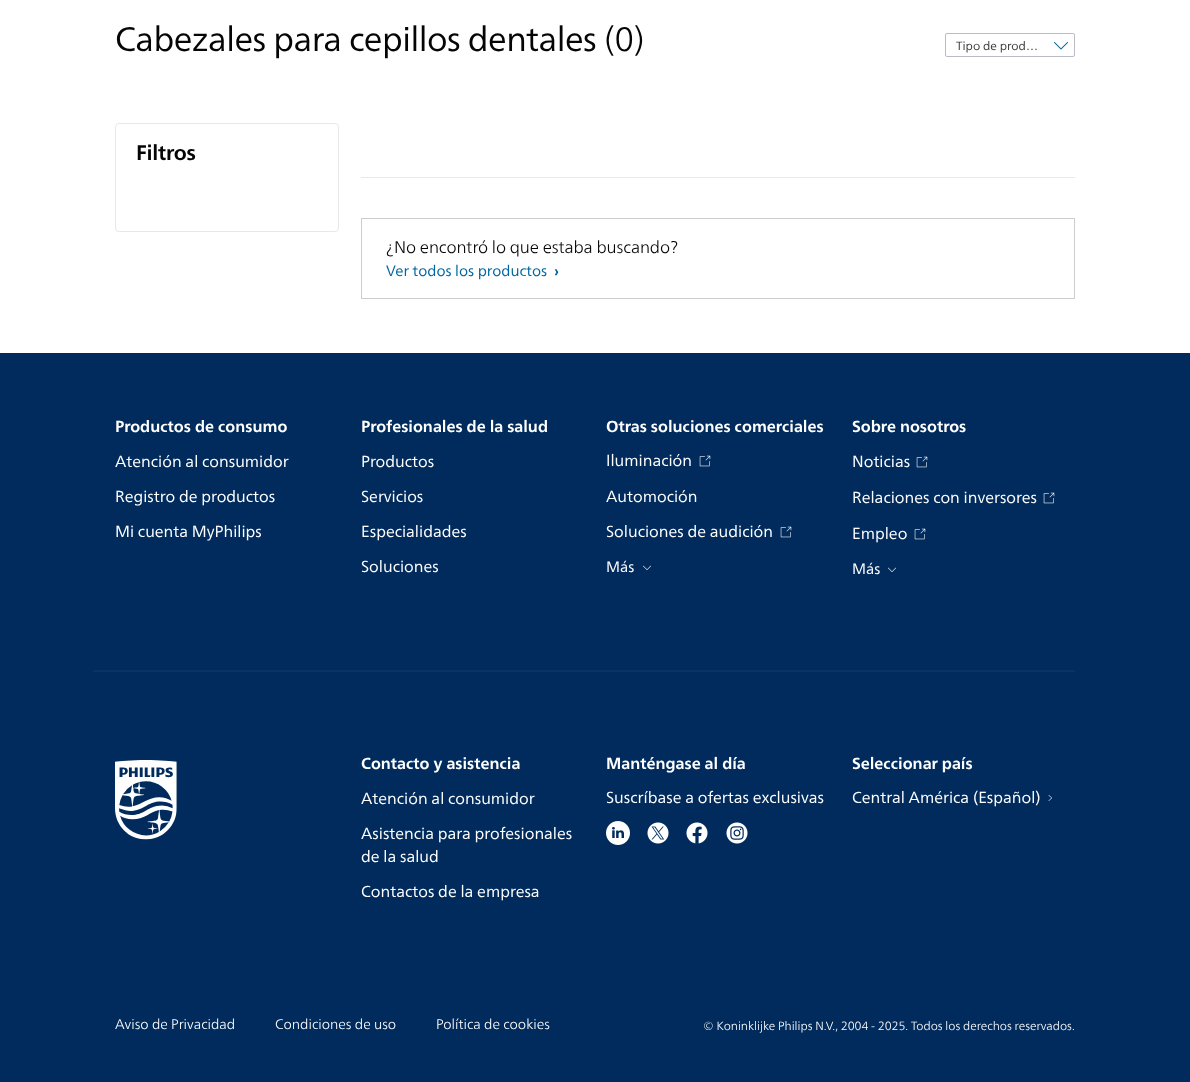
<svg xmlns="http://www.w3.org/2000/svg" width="1190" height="1082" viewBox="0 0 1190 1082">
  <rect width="100%" height="100%" fill="rgb(255,255,255)"/>
  <text x="115" y="51" font-family="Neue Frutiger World" font-size="34" letter-spacing="-0.5" fill="rgb(5,5,5)">Cabezales para cepillos dentales</text>
  <text x="604" y="51" font-family="Neue Frutiger World" font-size="34" font-weight="300" letter-spacing="-0.5" fill="rgb(5,5,5)">(0)</text>
  <rect x="945.5" y="33.5" width="129" height="23" rx="1.5" fill="none" stroke="rgb(185,187,199)"/>
  <text x="956" y="50" font-family="Neue Frutiger World" font-size="12" fill="rgb(60,60,60)">Tipo de prod…</text>
  <image x="1054" y="42" width="14" height="8" href="pic1.png"/>
  <rect x="115.5" y="123.5" width="223" height="108" rx="3.5" fill="none" stroke="rgb(232,232,232)"/>
  <text x="136" y="160" font-family="Neue Frutiger World" font-size="21" font-weight="bold" letter-spacing="-0.25" fill="rgb(5,5,5)">Filtros</text>
  <rect x="361" y="177" width="714" height="1" fill="rgb(223,237,240)"/>
  <rect x="361.5" y="218.5" width="713" height="80" fill="none" stroke="rgb(204,204,204)"/>
  <text x="386" y="253" font-family="Neue Frutiger World" font-size="17" font-weight="300" letter-spacing="-0.1" fill="rgb(5,5,5)">¿No encontró lo que estaba buscando?</text>
  <text x="386" y="276" font-family="Neue Frutiger World" font-size="15" fill="rgb(0,102,161)">Ver todos los productos</text>
  <text x="554" y="276" font-family="Neue Frutiger World" font-size="15" font-weight="bold" fill="rgb(0,102,161)">›</text>
  <rect x="0" y="353" width="1190" height="729" fill="rgb(0,43,92)"/>
  <text x="115" y="432" font-family="Neue Frutiger World" font-size="16" font-weight="bold" fill="rgb(255,255,255)">Productos de consumo</text>
  <g font-family="Neue Frutiger World" font-size="16" fill="rgb(255,255,255)">
    <text x="115" y="467">Atención al consumidor</text>
    <text x="115" y="502">Registro de productos</text>
    <text x="115" y="537">Mi cuenta MyPhilips</text>
  </g>
  <text x="361" y="432" font-family="Neue Frutiger World" font-size="16" font-weight="bold" fill="rgb(255,255,255)">Profesionales de la salud</text>
  <g font-family="Neue Frutiger World" font-size="16" fill="rgb(255,255,255)">
    <text x="361" y="467">Productos</text>
    <text x="361" y="502">Servicios</text>
    <text x="361" y="537">Especialidades</text>
    <text x="361" y="572">Soluciones</text>
  </g>
  <text x="606" y="432" font-family="Neue Frutiger World" font-size="16" font-weight="bold" fill="rgb(255,255,255)">Otras soluciones comerciales</text>
  <text x="606" y="466" font-family="Neue Frutiger World" font-size="16" fill="rgb(255,255,255)">Iluminación</text>
  <image x="699" y="455" width="12" height="12" href="pic2.png"/>
  <g font-family="Neue Frutiger World" font-size="16" fill="rgb(255,255,255)">
    <text x="606" y="502">Automoción</text>
    <text x="606" y="537">Soluciones de audición</text>
  </g>
  <image x="780" y="526" width="12" height="12" href="pic2.png"/>
  <text x="606" y="572" font-family="Neue Frutiger World" font-size="15" fill="rgb(255,255,255)">Más</text>
  <image x="643" y="565" width="8" height="5" href="pic3.png"/>
  <text x="852" y="432" font-family="Neue Frutiger World" font-size="16" font-weight="bold" fill="rgb(255,255,255)">Sobre nosotros</text>
  <text x="852" y="467" font-family="Neue Frutiger World" font-size="16" fill="rgb(255,255,255)">Noticias</text>
  <image x="916" y="456" width="12" height="12" href="pic2.png"/>
  <text x="852" y="503" font-family="Neue Frutiger World" font-size="16" fill="rgb(255,255,255)">Relaciones con inversores</text>
  <image x="1043" y="492" width="12" height="12" href="pic2.png"/>
  <text x="852" y="539" font-family="Neue Frutiger World" font-size="16" fill="rgb(255,255,255)">Empleo</text>
  <image x="914" y="528" width="12" height="12" href="pic2.png"/>
  <text x="852" y="574" font-family="Neue Frutiger World" font-size="15" fill="rgb(255,255,255)">Más</text>
  <image x="888" y="567" width="8" height="5" href="pic3.png"/>
  <rect x="93" y="670" width="982" height="2" fill="rgb(10,51,99)"/>
  <text x="361" y="769" font-family="Neue Frutiger World" font-size="16" font-weight="bold" fill="rgb(255,255,255)">Contacto y asistencia</text>
  <g font-family="Neue Frutiger World" font-size="16" fill="rgb(255,255,255)">
    <text x="361" y="804">Atención al consumidor</text>
    <text>
      <tspan x="361" y="839">Asistencia para profesionales</tspan>
      <tspan x="361" y="862">de la salud</tspan>
    </text>
    <text x="361" y="897">Contactos de la empresa</text>
  </g>
  <text x="606" y="769" font-family="Neue Frutiger World" font-size="16" font-weight="bold" fill="rgb(255,255,255)">Manténgase al día</text>
  <text x="606" y="803" font-family="Neue Frutiger World" font-size="16" fill="rgb(255,255,255)">Suscríbase a ofertas exclusivas</text>
  <image x="606" y="821" width="24" height="24" href="pic4.png"/>
  <image x="647" y="822" width="22" height="22" href="pic5.png"/>
  <image x="686" y="822" width="22" height="22" href="pic6.png"/>
  <image x="726" y="822" width="22" height="22" href="pic7.png"/>
  <text x="852" y="769" font-family="Neue Frutiger World" font-size="16" font-weight="bold" fill="rgb(255,255,255)">Seleccionar país</text>
  <text x="852" y="803" font-family="Neue Frutiger World" font-size="16" fill="rgb(255,255,255)">Central América (Español)</text>
  <image x="1048" y="795" width="4" height="6" href="pic8.png"/>
  <image x="115" y="760" width="62" height="80" href="pic9.png"/>
  <g font-family="Neue Frutiger World" font-size="14" font-weight="300" fill="rgb(255,255,255)">
    <text x="115" y="1029">Aviso de Privacidad</text>
    <text x="275" y="1029">Condiciones de uso</text>
    <text x="436" y="1029">Política de cookies</text>
  </g>
  <text x="703" y="1030" font-family="Neue Frutiger World" font-size="12" font-weight="300" fill="rgb(255,255,255)">© Koninklijke Philips N.V., 2004 - 2025. Todos los derechos reservados.</text>
</svg>
